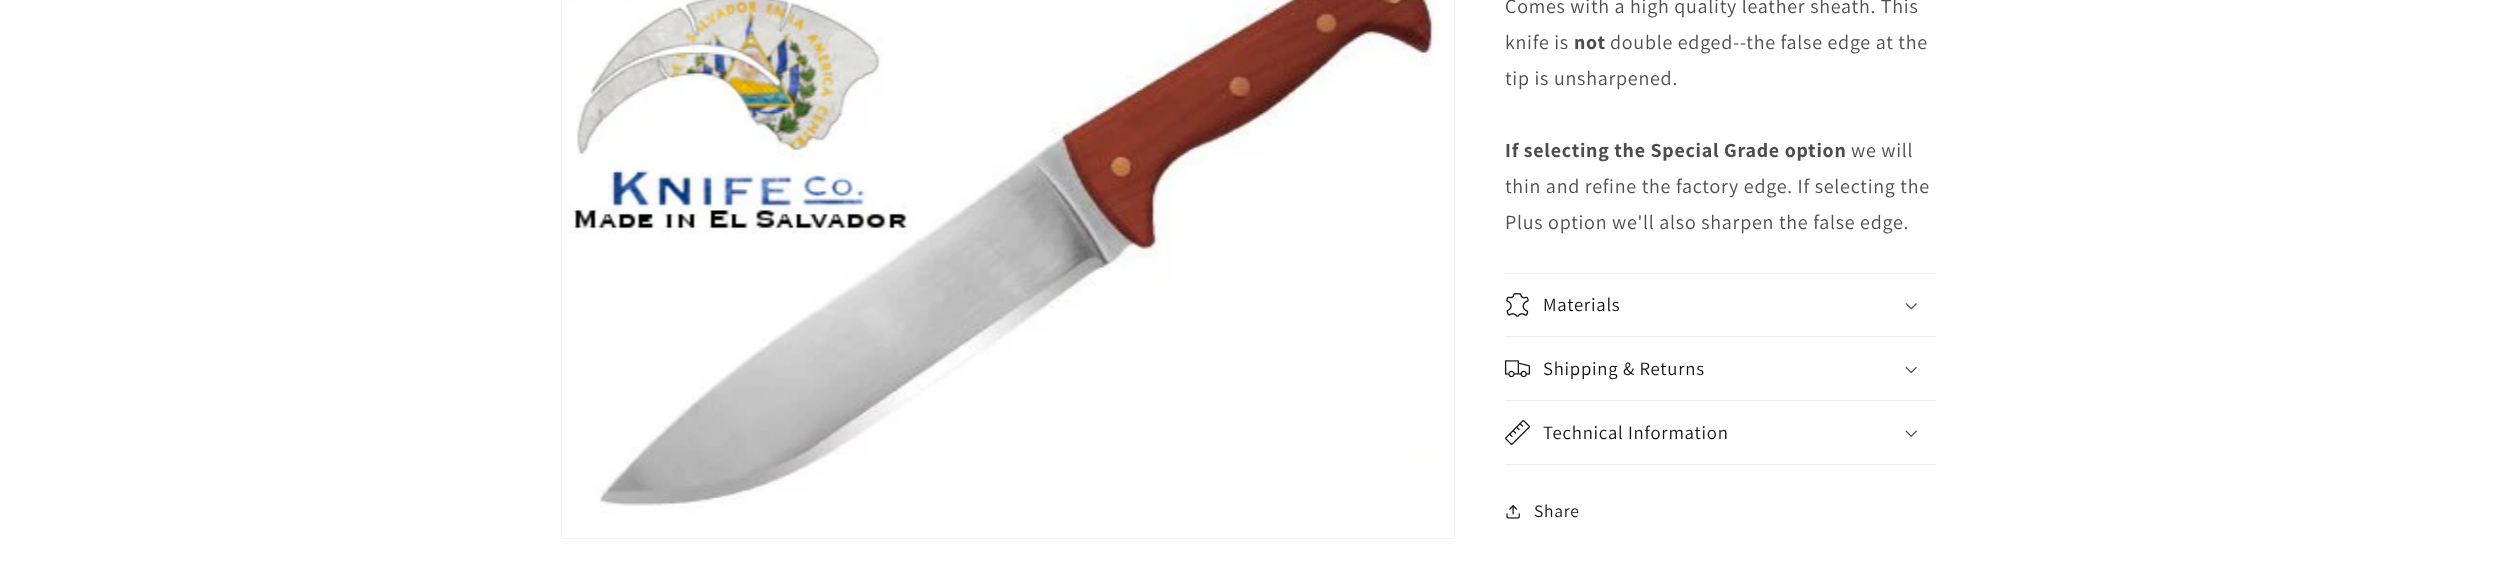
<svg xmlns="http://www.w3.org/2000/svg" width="2497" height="579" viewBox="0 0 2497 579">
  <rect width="100%" height="100%" fill="rgb(255,255,255)"/>
  <rect x="561.5" y="-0.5" width="893" height="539" fill="none" stroke="rgb(243,243,243)"/>
  <image x="563" y="0" width="876" height="514" href="pic1.png"/>
  <g font-family="Assistant" font-size="20" letter-spacing="0.75" fill="rgb(77,77,77)">
    <text>
      <tspan x="1505" y="13">Comes with a high quality leather sheath. This</tspan>
      <tspan x="1505" y="49">knife is</tspan>
    </text>
  </g>
  <text x="1574" y="49" font-family="Assistant" font-size="20" font-weight="bold" letter-spacing="0.75" fill="rgb(77,77,77)">not</text>
  <g font-family="Assistant" font-size="20" letter-spacing="0.75" fill="rgb(77,77,77)">
    <text x="1610" y="49">double edged--the false edge at the</text>
    <text x="1505" y="85">tip is unsharpened.</text>
  </g>
  <text x="1505" y="157" font-family="Assistant" font-size="20" font-weight="bold" letter-spacing="0.75" fill="rgb(77,77,77)">If selecting the Special Grade option</text>
  <g font-family="Assistant" font-size="20" letter-spacing="0.75" fill="rgb(77,77,77)">
    <text x="1851" y="157">we will</text>
    <text>
      <tspan x="1505" y="193">thin and refine the factory edge. If selecting the</tspan>
      <tspan x="1505" y="229">Plus option we'll also sharpen the false edge.</tspan>
    </text>
  </g>
  <rect x="1505" y="273" width="431" height="1" fill="rgb(236,236,236)"/>
  <rect x="1505" y="336" width="431" height="1" fill="rgb(236,236,236)"/>
  <image x="1506" y="293" width="23" height="24" href="pic2.png"/>
  <text x="1543" y="311" font-family="Assistant" font-size="18.75" letter-spacing="0.75" fill="rgb(18,18,18)">Materials</text>
  <image x="1905" y="303" width="12" height="7" href="pic3.png"/>
  <rect x="1505" y="400" width="431" height="1" fill="rgb(236,236,236)"/>
  <image x="1505" y="360" width="25" height="18" href="pic4.png"/>
  <text x="1543" y="375" font-family="Assistant" font-size="18.75" letter-spacing="0.75" fill="rgb(18,18,18)">Shipping &amp; Returns</text>
  <image x="1905" y="366" width="12" height="8" href="pic5.png"/>
  <rect x="1505" y="464" width="431" height="1" fill="rgb(236,236,236)"/>
  <image x="1505" y="420" width="25" height="25" href="pic6.png"/>
  <text x="1543" y="439" font-family="Assistant" font-size="18.75" letter-spacing="0.75" fill="rgb(18,18,18)">Technical Information</text>
  <image x="1905" y="430" width="12" height="7" href="pic7.png"/>
  <image x="1506" y="505" width="14" height="14" href="pic8.png"/>
  <text x="1534" y="517" font-family="Assistant" font-size="17.5" letter-spacing="0.75" fill="rgb(18,18,18)">Share</text>
</svg>
